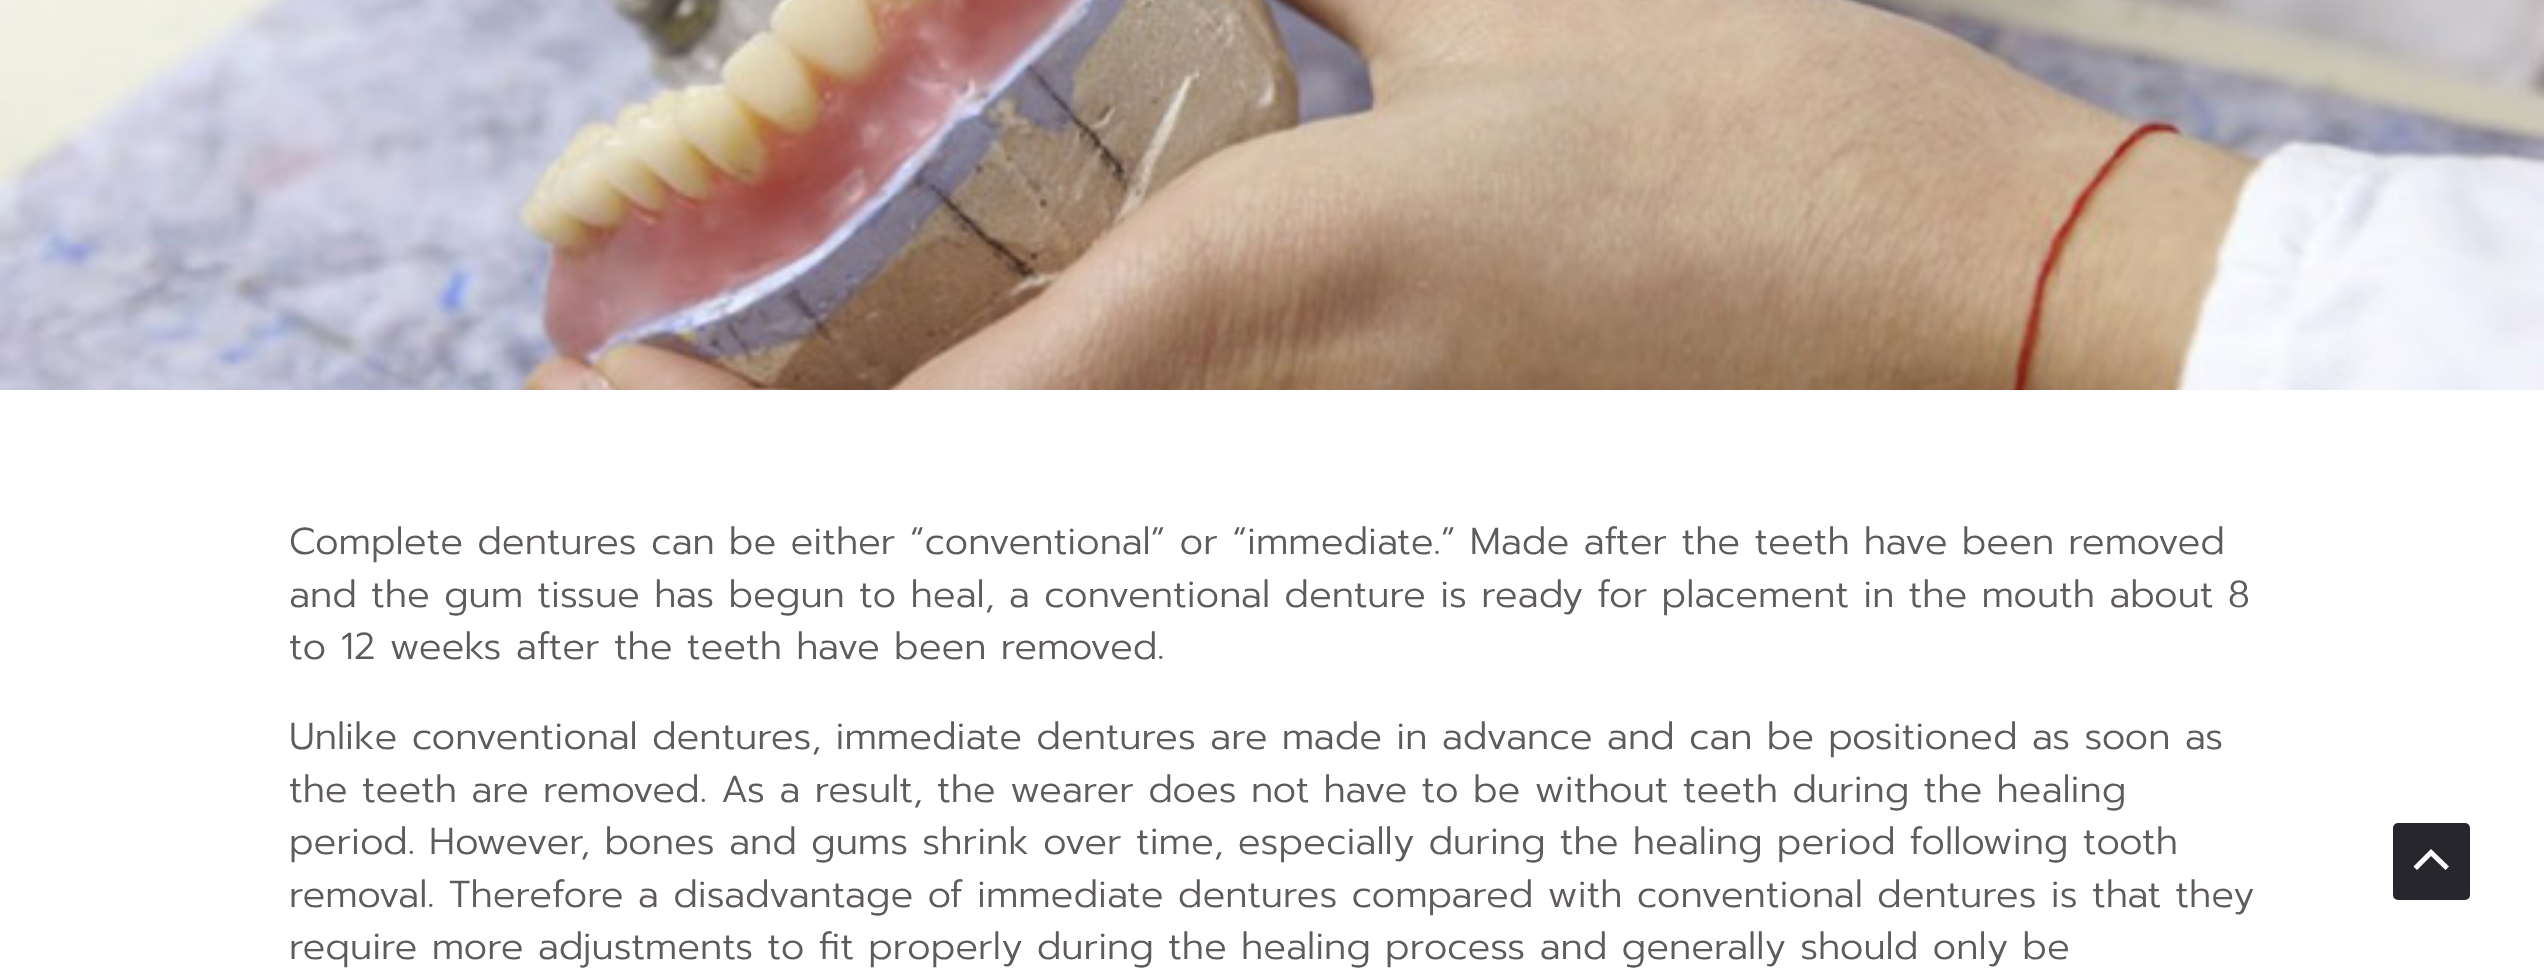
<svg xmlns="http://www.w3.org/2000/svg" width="2544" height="974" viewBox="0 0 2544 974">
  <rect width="100%" height="100%" fill="rgb(255,255,255)"/>
  <image x="0" y="0" width="2544" height="390" href="pic1.png"/>
  <g font-family="Prompt" font-size="37.5" font-weight="300" fill="rgb(95,91,91)">
    <text>
      <tspan x="289" y="554">Complete dentures can be either “conventional” or “immediate.” Made after the teeth have been removed</tspan>
      <tspan x="289" y="607">and the gum tissue has begun to heal, a conventional denture is ready for placement in the mouth about 8</tspan>
      <tspan x="289" y="659">to 12 weeks after the teeth have been removed.</tspan>
    </text>
    <text>
      <tspan x="289" y="749">Unlike conventional dentures, immediate dentures are made in advance and can be positioned as soon as</tspan>
      <tspan x="289" y="802">the teeth are removed. As a result, the wearer does not have to be without teeth during the healing</tspan>
      <tspan x="289" y="854">period. However, bones and gums shrink over time, especially during the healing period following tooth</tspan>
      <tspan x="289" y="907">removal. Therefore a disadvantage of immediate dentures compared with conventional dentures is that they</tspan>
      <tspan x="289" y="959">require more adjustments to fit properly during the healing process and generally should only be</tspan>
    </text>
  </g>
  <rect x="2393" y="823" width="77" height="77" rx="5" fill="rgb(38,38,44)"/>
  <path d="M2449 866.5L2431 849L2413.5 866.5L2417 870L2431 856L2445.5 870Z" fill="rgb(255,255,255)"/>
</svg>
